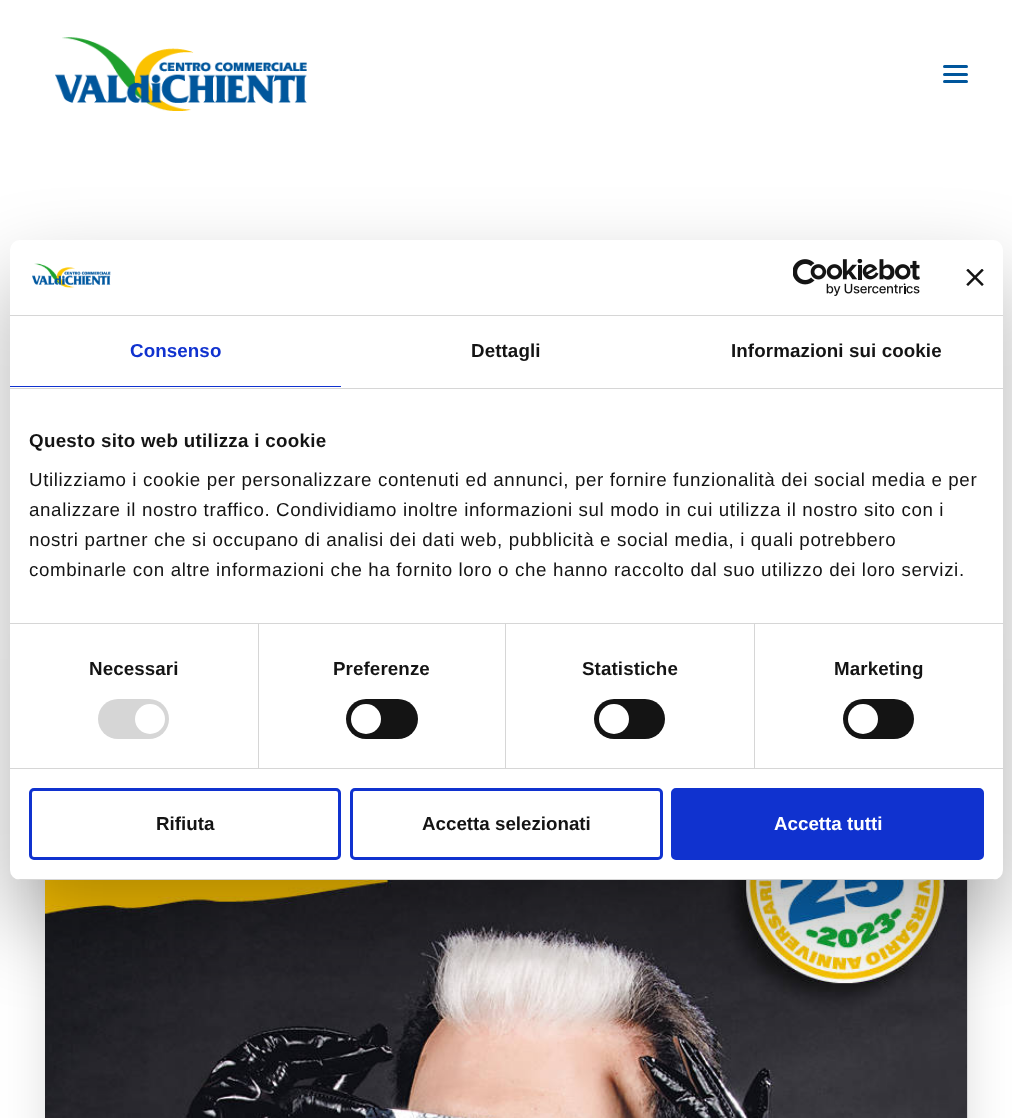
<svg xmlns="http://www.w3.org/2000/svg" width="1012" height="1118" viewBox="0 0 1012 1118">
  <defs>
    <clipPath id="clip1"><rect x="10" y="240" width="993" height="640" rx="10"/></clipPath>
  </defs>
  <rect width="100%" height="100%" fill="rgb(255,255,255)"/>
  <image x="55" y="37" width="252" height="74" href="pic1.png"/>
  <rect x="943" y="73" width="25" height="3" rx="1.5" fill="rgb(0,86,156)"/>
  <rect x="943" y="65" width="25" height="3" rx="1.5" fill="rgb(0,86,156)"/>
  <rect x="943" y="80" width="25" height="3" rx="1.5" fill="rgb(0,86,156)"/>
  <rect x="83" y="659" width="847" height="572" fill="rgba(0,0,0,0.45)" filter="blur(37.5px)"/>
  <image x="45" y="880" width="923" height="238" href="pic2.png"/>
  <rect x="10" y="280" width="993" height="640" rx="10" fill="rgba(0,0,0,0.3)" filter="blur(42.5px)"/>
  <rect x="10" y="240" width="993" height="640" rx="10" fill="rgb(255,255,255)"/>
  <rect x="10" y="315" width="993" height="1" fill="rgb(214,214,214)"/>
  <image x="32" y="263" width="79" height="25" href="pic3.png"/>
  <image x="793" y="259" width="127" height="37" href="pic4.png"/>
  <image x="966" y="269" width="18" height="17" href="pic5.png"/>
  <rect x="10" y="388" width="993" height="1" fill="rgb(214,214,214)"/>
  <rect x="10" y="386" width="331" height="1" fill="rgb(16,50,207)"/>
  <text x="130" y="357" font-family="Liberation Sans" font-size="18.75" font-weight="bold" letter-spacing="0.1" fill="rgb(16,50,207)">Consenso</text>
  <g font-family="Liberation Sans" font-size="18.75" font-weight="bold" letter-spacing="0.1" fill="rgb(20,20,20)">
    <text x="471" y="357">Dettagli</text>
    <text x="731" y="357">Informazioni sui cookie</text>
  </g>
  <rect x="10" y="623" width="993" height="1" fill="rgb(214,214,214)"/>
  <text x="29" y="447" font-family="Liberation Sans" font-size="18.75" font-weight="bold" letter-spacing="0.3" fill="rgb(20,20,20)">Questo sito web utilizza i cookie</text>
  <g font-family="Liberation Sans" font-size="18.75" letter-spacing="0.62" fill="rgb(20,20,20)">
    <text>
      <tspan x="29" y="486">Utilizziamo i cookie per personalizzare contenuti ed annunci, per fornire funzionalità dei social media e per</tspan>
      <tspan x="29" y="516">analizzare il nostro traffico. Condividiamo inoltre informazioni sul modo in cui utilizza il nostro sito con i</tspan>
      <tspan x="29" y="546">nostri partner che si occupano di analisi dei dati web, pubblicità e social media, i quali potrebbero</tspan>
      <tspan x="29" y="576">combinarle con altre informazioni che ha fornito loro o che hanno raccolto dal suo utilizzo dei loro servizi.</tspan>
    </text>
  </g>
  <rect x="10" y="768" width="993" height="1" fill="rgb(214,214,214)"/>
  <rect x="258" y="624" width="1" height="144" fill="rgb(214,214,214)"/>
  <text x="89" y="675" font-family="Liberation Sans" font-size="18.75" font-weight="bold" letter-spacing="0.1" fill="rgb(20,20,20)">Necessari</text>
  <rect x="98" y="699" width="71" height="40" rx="20" fill="rgb(214,214,214)"/>
  <circle cx="150" cy="719" r="15" fill="rgb(255,255,255)"/>
  <rect x="505" y="624" width="1" height="144" fill="rgb(214,214,214)"/>
  <text x="333" y="675" font-family="Liberation Sans" font-size="18.75" font-weight="bold" letter-spacing="0.1" fill="rgb(20,20,20)">Preferenze</text>
  <rect x="346" y="699" width="72" height="40" rx="20" fill="rgb(20,20,20)"/>
  <circle cx="366" cy="719" r="15" fill="rgb(255,255,255)"/>
  <rect x="754" y="624" width="1" height="144" fill="rgb(214,214,214)"/>
  <text x="582" y="675" font-family="Liberation Sans" font-size="18.75" font-weight="bold" letter-spacing="0.1" fill="rgb(20,20,20)">Statistiche</text>
  <rect x="594" y="699" width="71" height="40" rx="20" fill="rgb(20,20,20)"/>
  <circle cx="614" cy="719" r="15" fill="rgb(255,255,255)"/>
  <text x="834" y="675" font-family="Liberation Sans" font-size="18.75" font-weight="bold" letter-spacing="0.1" fill="rgb(20,20,20)">Marketing</text>
  <rect x="843" y="699" width="71" height="40" rx="20" fill="rgb(20,20,20)"/>
  <circle cx="863" cy="719" r="15" fill="rgb(255,255,255)"/>
  <g clip-path="url(#clip1)">
    <rect x="10" y="879" width="993" height="1" fill="rgb(214,214,214)"/>
  </g>
  <rect x="30.5" y="789.5" width="309" height="69" rx="3.5" fill="none" stroke="rgb(16,50,207)" stroke-width="3"/>
  <text x="156" y="830" font-family="Liberation Sans" font-size="18.75" font-weight="bold" fill="rgb(20,20,20)">Rifiuta</text>
  <rect x="351.5" y="789.5" width="310" height="69" rx="3.5" fill="none" stroke="rgb(16,50,207)" stroke-width="3"/>
  <text x="422" y="830" font-family="Liberation Sans" font-size="18.75" font-weight="bold" fill="rgb(20,20,20)">Accetta selezionati</text>
  <rect x="672.5" y="789.5" width="310" height="69" rx="3.5" fill="rgb(16,50,207)" stroke="rgb(16,50,207)" stroke-width="3"/>
  <text x="774" y="830" font-family="Liberation Sans" font-size="18.75" font-weight="bold" fill="rgb(255,255,255)">Accetta tutti</text>
</svg>
